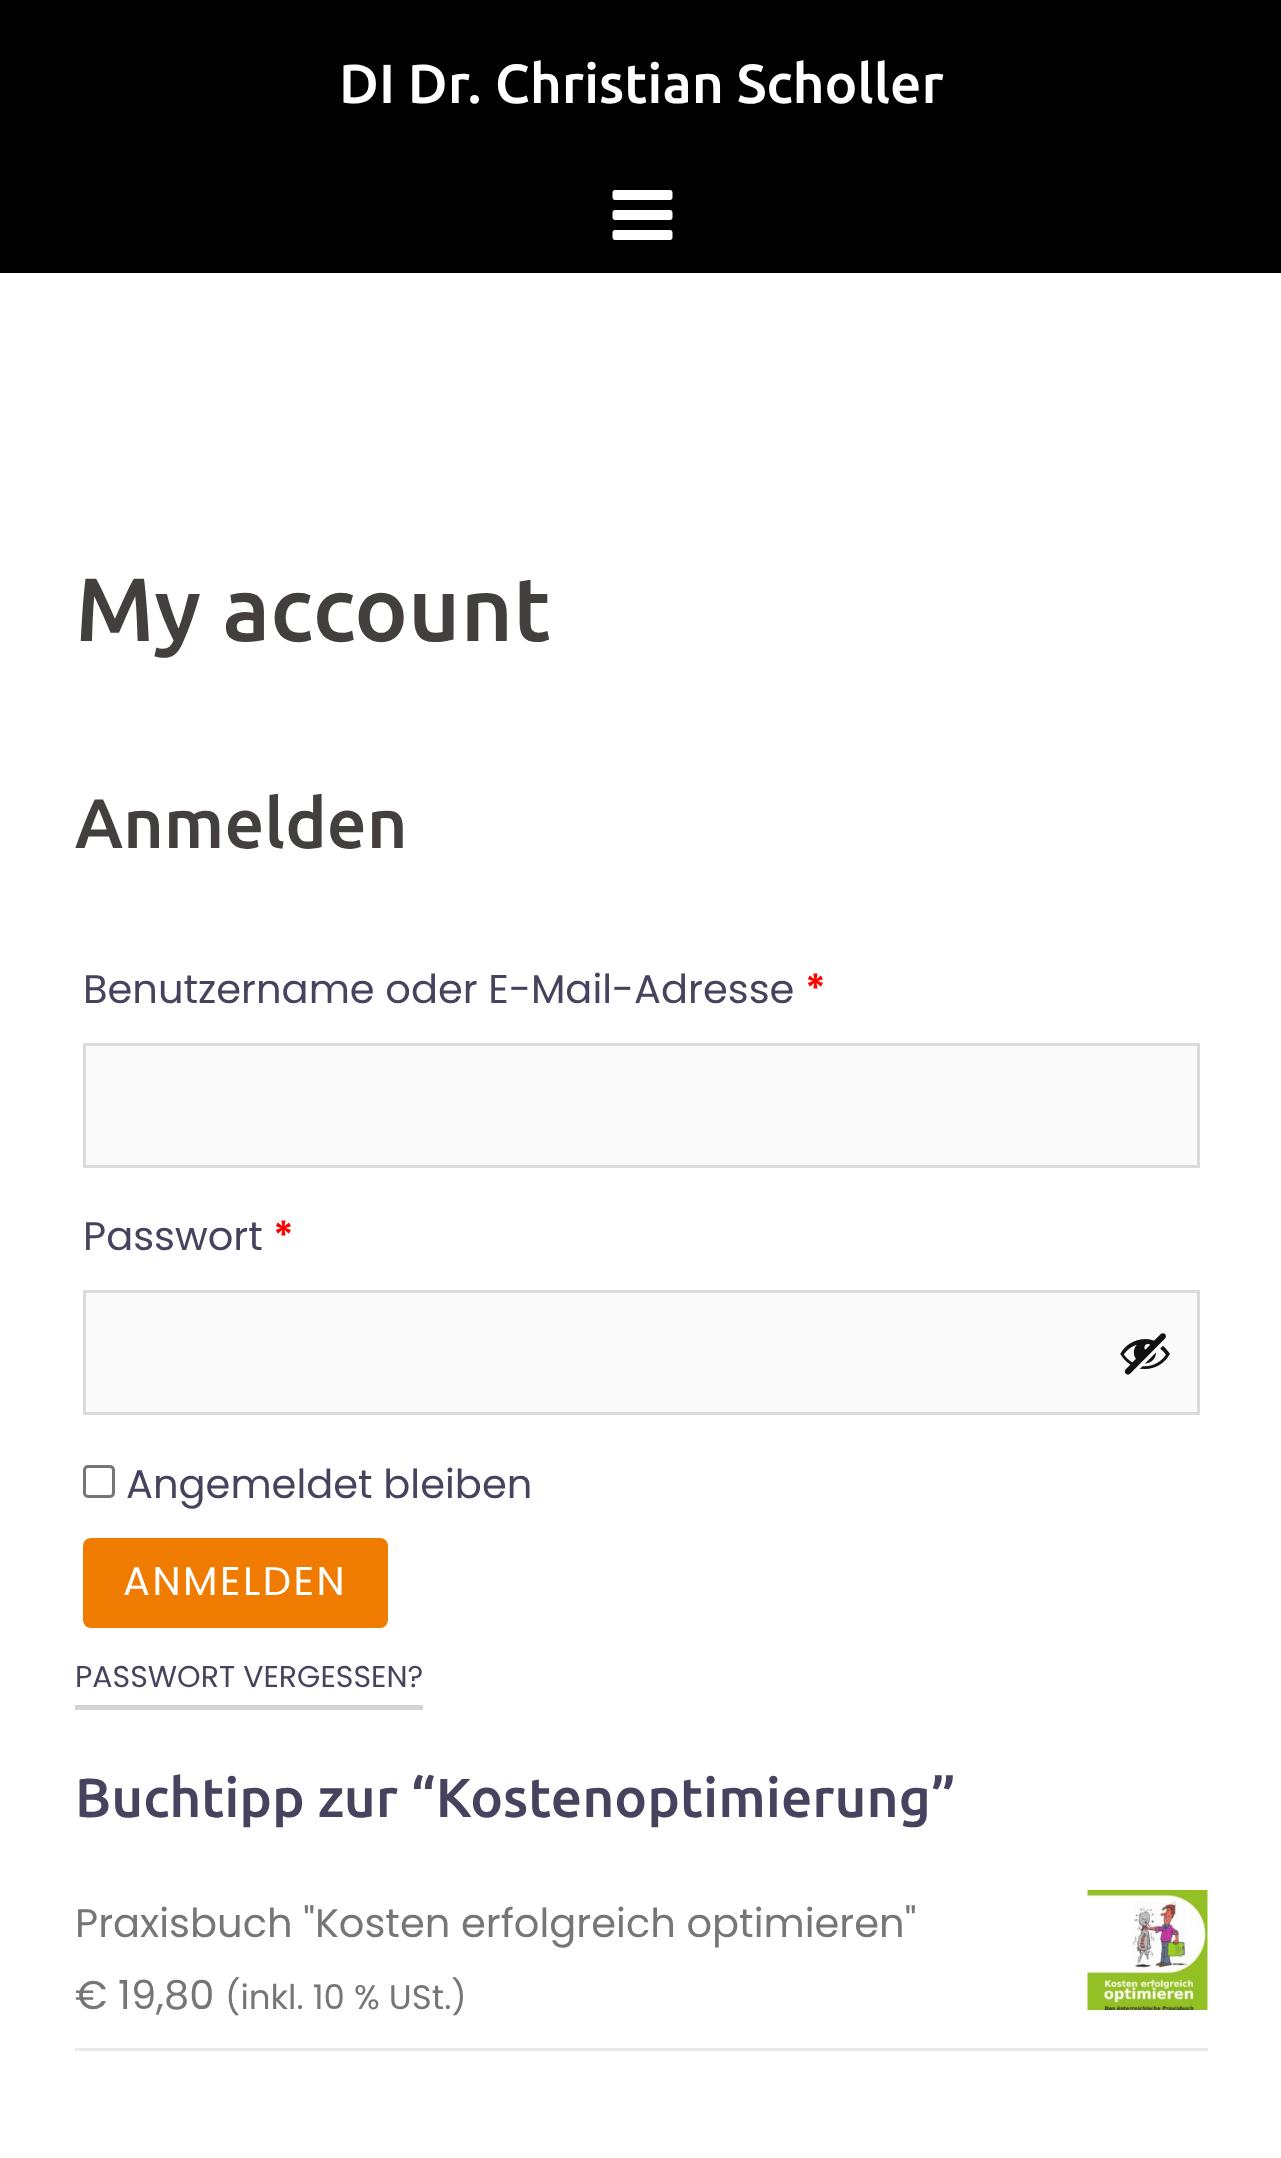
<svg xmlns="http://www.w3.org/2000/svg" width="1281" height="2158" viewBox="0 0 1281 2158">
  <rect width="100%" height="100%" fill="rgb(255,255,255)"/>
  <rect x="0" y="0" width="1281" height="273" fill="rgb(0,0,0)"/>
  <text x="339" y="103" font-family="Ubuntu" font-size="55" font-weight="500" fill="rgb(255,255,255)">DI Dr. Christian Scholler</text>
  <image x="612" y="190" width="61" height="50" href="pic1.png"/>
  <text x="75" y="641" font-family="Ubuntu" font-size="90" font-weight="500" fill="rgb(68,63,63)">My account</text>
  <text x="75" y="848" font-family="Ubuntu" font-size="70" font-weight="500" fill="rgb(68,63,63)">Anmelden</text>
  <text x="83" y="1003" font-family="Poppins" font-size="40" fill="rgb(71,66,93)">Benutzername oder E-Mail-Adresse</text>
  <text x="805" y="1003" font-family="Poppins" font-size="40" font-weight="600" fill="rgb(255,0,0)">*</text>
  <rect x="84.5" y="1044.5" width="1114" height="122" fill="rgb(250,250,250)" stroke="rgb(219,219,219)" stroke-width="3"/>
  <text x="83" y="1250" font-family="Poppins" font-size="40" fill="rgb(71,66,93)">Passwort</text>
  <text x="273" y="1250" font-family="Poppins" font-size="40" font-weight="600" fill="rgb(255,0,0)">*</text>
  <rect x="84.5" y="1291.5" width="1114" height="122" fill="rgb(250,250,250)" stroke="rgb(219,219,219)" stroke-width="3"/>
  <image x="1120" y="1333" width="50" height="42" href="pic2.png"/>
  <rect x="84.5" y="1466.5" width="29" height="30" rx="3.5" fill="none" stroke="rgb(118,118,118)" stroke-width="3"/>
  <text x="126" y="1498" font-family="Poppins" font-size="40" fill="rgb(71,66,93)">Angemeldet bleiben</text>
  <rect x="83" y="1538" width="305" height="90" rx="8" fill="rgb(239,124,0)"/>
  <text x="123" y="1595" font-family="Poppins" font-size="40" letter-spacing="2.5" fill="rgb(255,255,255)">ANMELDEN</text>
  <rect x="75" y="1705" width="348" height="5" fill="rgb(212,212,212)"/>
  <text x="75" y="1687" font-family="Poppins" font-size="30" fill="rgb(71,66,93)">PASSWORT VERGESSEN?</text>
  <text x="75" y="1817" font-family="Ubuntu" font-size="55" font-weight="500" fill="rgb(71,66,93)">Buchtipp zur “Kostenoptimierung”</text>
  <rect x="75" y="2048" width="1133" height="3" fill="rgb(235,233,235)"/>
  <text x="75" y="1937" font-family="Poppins" font-size="40" fill="rgb(118,118,118)">Praxisbuch "Kosten erfolgreich optimieren"</text>
  <image x="1087" y="1890" width="121" height="120" href="pic3.png"/>
  <text x="75" y="2009" font-family="Poppins" font-size="40" fill="rgb(118,118,118)">€ 19,80</text>
  <text x="225" y="2009" font-family="Poppins" font-size="34" fill="rgb(118,118,118)">(inkl. 10 % USt.)</text>
</svg>
